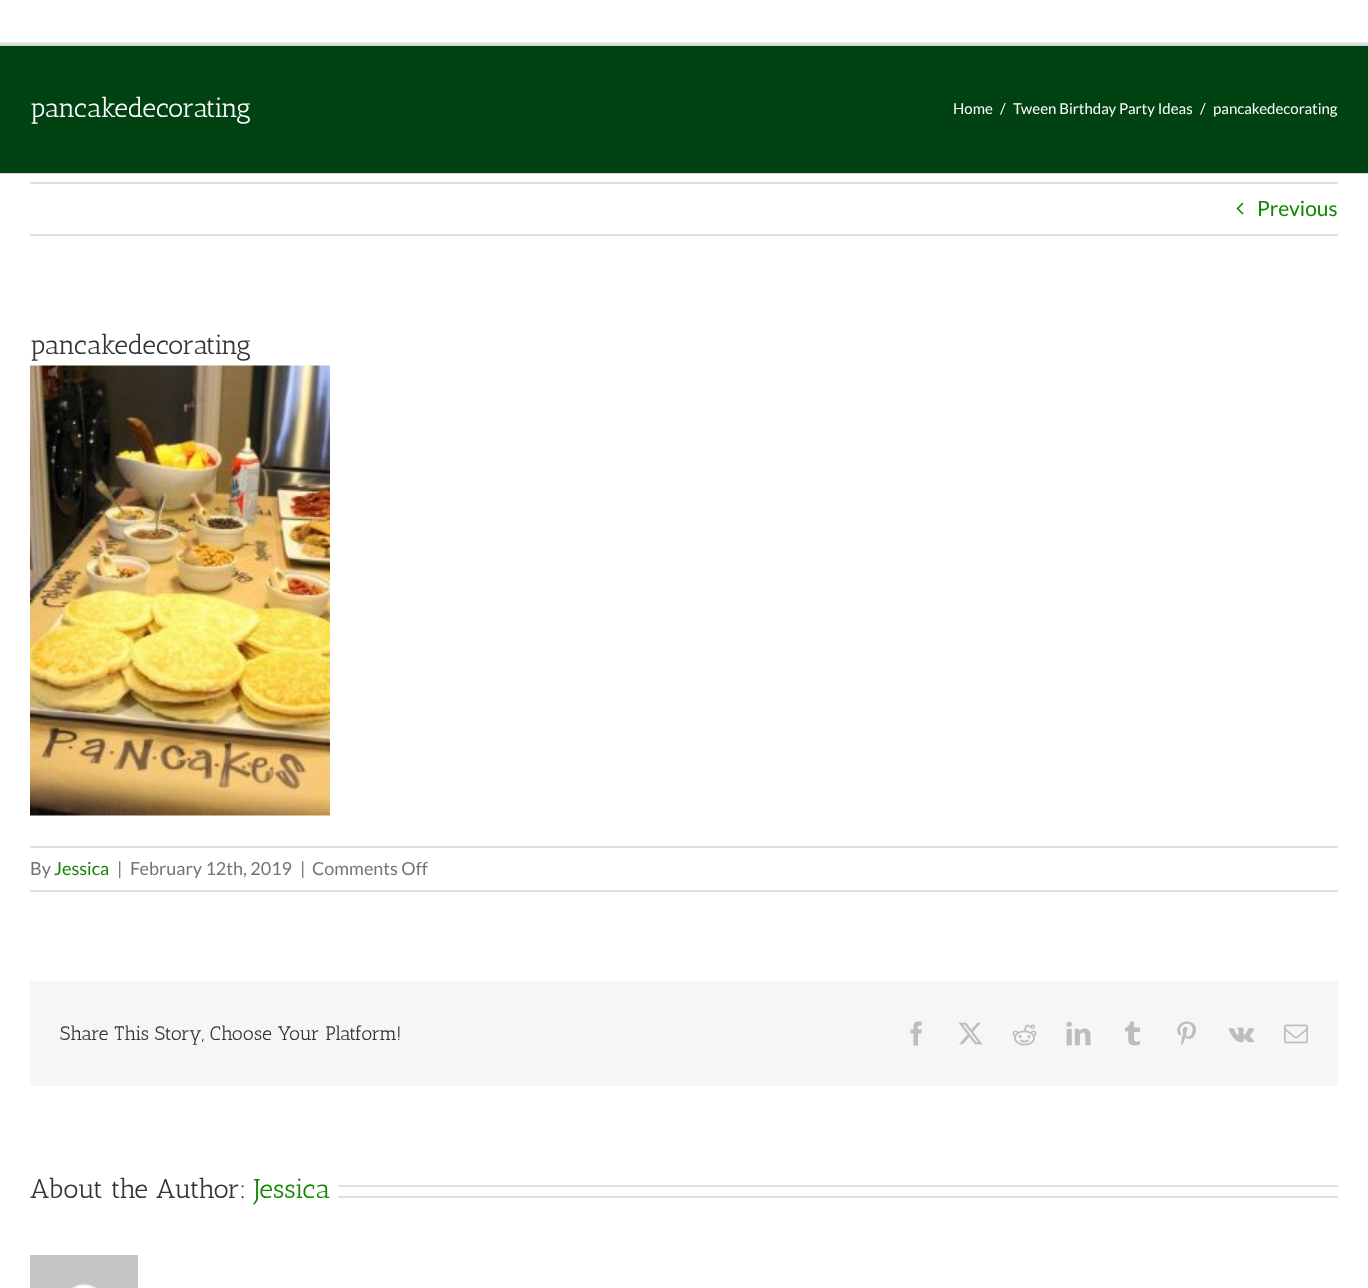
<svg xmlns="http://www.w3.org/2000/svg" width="1368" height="1288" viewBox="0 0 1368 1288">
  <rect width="100%" height="100%" fill="rgb(0,66,17)"/>
  <rect x="0" y="0" width="1368" height="42" fill="rgb(255,255,255)"/>
  <rect x="0" y="42" width="1368" height="2" fill="rgb(229,229,229)"/>
  <rect x="0" y="44" width="1368" height="2" fill="rgb(210,211,212)"/>
  <rect x="0" y="173" width="1368" height="1" fill="rgb(210,211,212)"/>
  <text x="30" y="117" font-family="Antic Slab" font-size="27" fill="rgb(255,255,255)">pancakedecorating</text>
  <g font-family="Lato" font-size="15" fill="rgb(255,255,255)">
    <text x="953" y="114">Home</text>
    <text x="1000" y="114">/</text>
    <text x="1013" y="114">Tween Birthday Party Ideas</text>
    <text x="1200" y="114">/</text>
    <text x="1213" y="114">pancakedecorating</text>
  </g>
  <rect x="0" y="174" width="1368" height="1114" fill="rgb(255,255,255)"/>
  <rect x="30" y="182" width="1308" height="2" fill="rgb(224,222,222)"/>
  <rect x="30" y="234" width="1308" height="2" fill="rgb(224,222,222)"/>
  <image x="1236" y="202" width="8" height="13" href="pic1.png"/>
  <text x="1257" y="216" font-family="Lato" font-size="21" fill="rgb(15,135,0)">Previous</text>
  <text x="30" y="354" font-family="Antic Slab" font-size="27" fill="rgb(51,51,51)">pancakedecorating</text>
  <image x="30" y="365" width="300" height="451" href="pic2.png"/>
  <rect x="30" y="846" width="1308" height="2" fill="rgb(224,222,222)"/>
  <rect x="30" y="890" width="1308" height="2" fill="rgb(224,222,222)"/>
  <text x="30" y="875" font-family="Lato" font-size="18" fill="rgb(116,116,116)">By</text>
  <text x="54" y="875" font-family="Lato" font-size="18" fill="rgb(15,135,0)">Jessica</text>
  <g font-family="Lato" font-size="18" fill="rgb(116,116,116)">
    <text x="117" y="875">|</text>
    <text x="130" y="875">February 12th, 2019</text>
    <text x="300" y="875">|</text>
    <text x="312" y="875">Comments Off</text>
  </g>
  <rect x="30" y="981" width="1308" height="105" fill="rgb(246,246,246)"/>
  <text x="60" y="1040" font-family="Antic Slab" font-size="19.5" fill="rgb(51,51,51)">Share This Story, Choose Your Platform!</text>
  <image x="910" y="1021" width="12" height="25" href="pic3.png"/>
  <image x="958" y="1022" width="25" height="23" href="pic4.png"/>
  <image x="1012" y="1024" width="25" height="22" href="pic5.png"/>
  <image x="1066" y="1021" width="25" height="25" href="pic6.png"/>
  <image x="1125" y="1021" width="15" height="25" href="pic7.png"/>
  <image x="1177" y="1021" width="19" height="25" href="pic8.png"/>
  <image x="1228" y="1027" width="27" height="16" href="pic9.png"/>
  <image x="1284" y="1024" width="24" height="20" href="pic10.png"/>
  <text x="30" y="1198" font-family="Antic Slab" font-size="27" fill="rgb(51,51,51)">About the Author:</text>
  <text x="254" y="1198" font-family="Antic Slab" font-size="27" fill="rgb(15,135,0)">Jessica</text>
  <rect x="338" y="1185" width="1000" height="2" fill="rgb(224,222,222)"/>
  <rect x="338" y="1196" width="1000" height="2" fill="rgb(224,222,222)"/>
  <image x="30" y="1255" width="108" height="33" href="pic11.png"/>
</svg>
